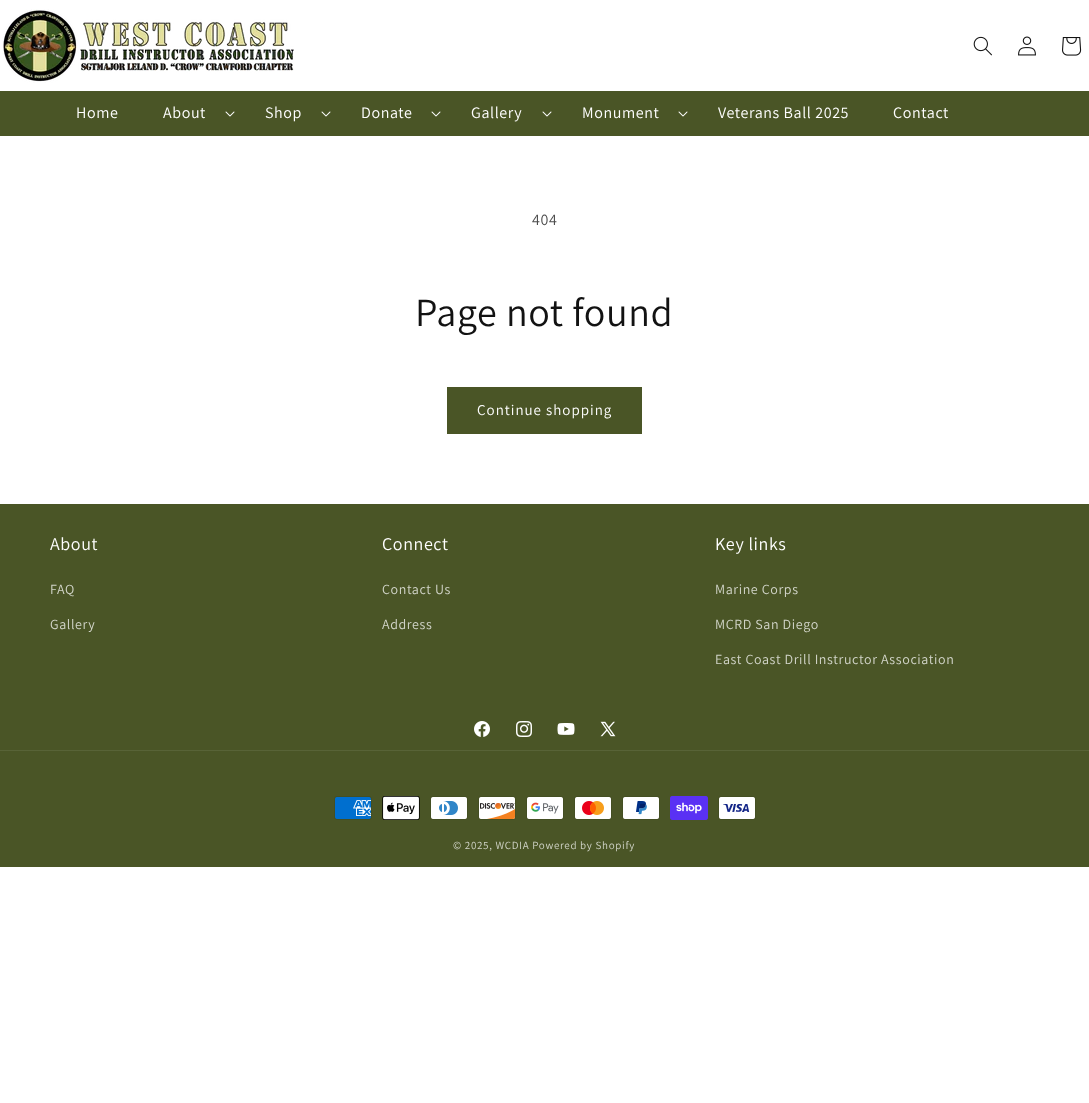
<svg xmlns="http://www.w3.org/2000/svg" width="1089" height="1103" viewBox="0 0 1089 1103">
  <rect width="100%" height="100%" fill="rgb(255,255,255)"/>
  <image x="2" y="9" width="292" height="74" href="pic1.png"/>
  <image x="973" y="36" width="19" height="20" href="pic2.png"/>
  <image x="1018" y="36" width="18" height="20" href="pic3.png"/>
  <image x="1062" y="37" width="20" height="19" href="pic4.png"/>
  <rect x="0" y="91" width="1089" height="45" fill="rgb(74,85,38)"/>
  <g font-family="Assistant" font-size="16" letter-spacing="0.6" fill="rgb(255,255,255)">
    <text x="76" y="118">Home</text>
    <text x="163" y="118">About</text>
  </g>
  <image x="225" y="111" width="10" height="6" href="pic5.png"/>
  <text x="265" y="118" font-family="Assistant" font-size="16" letter-spacing="0.6" fill="rgb(255,255,255)">Shop</text>
  <image x="321" y="111" width="10" height="6" href="pic5.png"/>
  <text x="361" y="118" font-family="Assistant" font-size="16" letter-spacing="0.6" fill="rgb(255,255,255)">Donate</text>
  <image x="431" y="111" width="10" height="6" href="pic5.png"/>
  <text x="471" y="118" font-family="Assistant" font-size="16" letter-spacing="0.6" fill="rgb(255,255,255)">Gallery</text>
  <image x="542" y="111" width="10" height="6" href="pic5.png"/>
  <text x="582" y="118" font-family="Assistant" font-size="16" letter-spacing="0.6" fill="rgb(255,255,255)">Monument</text>
  <image x="678" y="111" width="10" height="6" href="pic5.png"/>
  <g font-family="Assistant" font-size="16" letter-spacing="0.6" fill="rgb(255,255,255)">
    <text x="718" y="118">Veterans Ball 2025</text>
    <text x="893" y="118">Contact</text>
  </g>
  <text x="532" y="225" font-family="Assistant" font-size="16" letter-spacing="0.6" fill="rgb(77,77,77)">404</text>
  <text x="415" y="326" font-family="Assistant" font-size="40" letter-spacing="0.6" fill="rgb(18,18,18)">Page not found</text>
  <rect x="447" y="387" width="195" height="47" fill="rgb(74,85,38)"/>
  <text x="477" y="415" font-family="Assistant" font-size="15" letter-spacing="1" fill="rgb(255,255,255)">Continue shopping</text>
  <rect x="0" y="504" width="1089" height="363" fill="rgb(74,85,38)"/>
  <text x="50" y="550" font-family="Assistant" font-size="18" letter-spacing="0.6" fill="rgb(255,255,255)">About</text>
  <g font-family="Assistant" font-size="14" letter-spacing="0.6" fill="rgb(210,213,201)">
    <text x="50" y="594">FAQ</text>
    <text x="50" y="629">Gallery</text>
  </g>
  <text x="382" y="550" font-family="Assistant" font-size="18" letter-spacing="0.6" fill="rgb(255,255,255)">Connect</text>
  <g font-family="Assistant" font-size="14" letter-spacing="0.6" fill="rgb(210,213,201)">
    <text x="382" y="594">Contact Us</text>
    <text x="382" y="629">Address</text>
  </g>
  <text x="715" y="550" font-family="Assistant" font-size="18" letter-spacing="0.6" fill="rgb(255,255,255)">Key links</text>
  <g font-family="Assistant" font-size="14" letter-spacing="0.6" fill="rgb(210,213,201)">
    <text x="715" y="594">Marine Corps</text>
    <text x="715" y="629">MCRD San Diego</text>
    <text x="715" y="664">East Coast Drill Instructor Association</text>
  </g>
  <image x="474" y="721" width="16" height="16" href="pic6.png"/>
  <image x="516" y="721" width="16" height="16" href="pic7.png"/>
  <image x="557" y="723" width="18" height="12" href="pic8.png"/>
  <image x="600" y="721" width="16" height="16" href="pic9.png"/>
  <rect x="0" y="750" width="1089" height="1" fill="rgb(88,99,55)"/>
  <image x="334" y="796" width="38" height="24" href="pic10.png"/>
  <image x="382" y="796" width="38" height="24" href="pic11.png"/>
  <image x="430" y="796" width="38" height="24" href="pic12.png"/>
  <image x="478" y="796" width="38" height="24" href="pic13.png"/>
  <image x="526" y="796" width="38" height="24" href="pic14.png"/>
  <image x="574" y="796" width="38" height="24" href="pic15.png"/>
  <image x="622" y="796" width="38" height="24" href="pic16.png"/>
  <image x="670" y="796" width="38" height="24" href="pic17.png"/>
  <image x="718" y="796" width="38" height="24" href="pic18.png"/>
  <text x="453" y="849" font-family="Assistant" font-size="11" letter-spacing="0.7" fill="rgb(210,213,201)">© 2025, WCDIA Powered by Shopify</text>
</svg>
